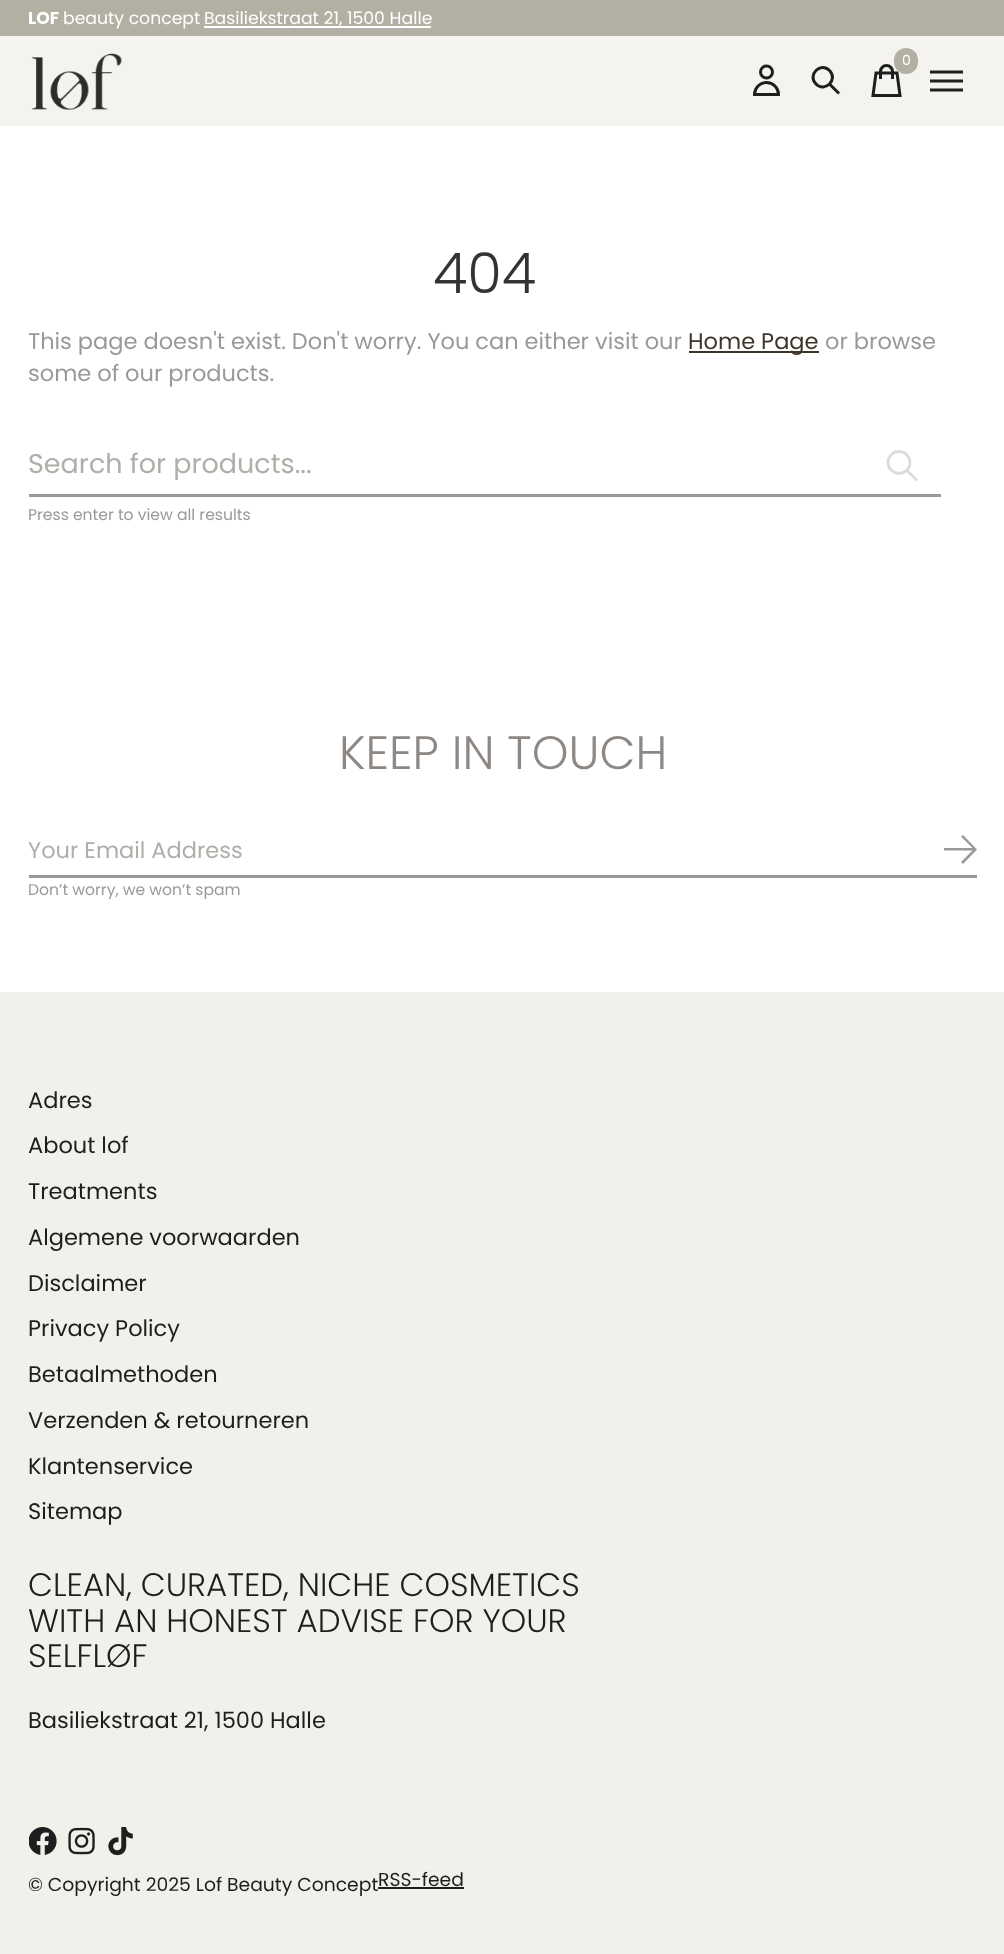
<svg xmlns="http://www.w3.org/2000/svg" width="1004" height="1954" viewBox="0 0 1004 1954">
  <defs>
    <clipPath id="clip1"><rect x="944" y="833" width="33" height="34"/></clipPath>
  </defs>
  <rect width="100%" height="100%" fill="rgb(255,255,255)"/>
  <rect x="0" y="0" width="1004" height="36" fill="rgb(178,176,163)"/>
  <text x="28" y="24" font-family="Poppins" font-size="17.25" font-weight="bold" fill="rgb(255,255,255)">LOF</text>
  <text x="63" y="24" font-family="Poppins" font-size="17.25" fill="rgb(255,255,255)">beauty concept</text>
  <rect x="204" y="26" width="227" height="2" fill="rgb(255,255,255)"/>
  <text x="204" y="24" font-family="Poppins" font-size="17.25" fill="rgb(255,255,255)">Basiliekstraat 21, 1500 Halle</text>
  <rect x="0" y="36" width="1004" height="90" fill="rgb(244,243,239)"/>
  <image x="31" y="53" width="91" height="57" href="pic1.png"/>
  <path d="M900 95.5H873L876 73H897ZM880.5 77.5V71.5C880.5 68.5 883 65.5 886.5 65.5C890 65.5 892.5 68.5 892.5 71.5V77.5" fill="none" stroke="rgb(30,30,30)" stroke-width="3" stroke-linecap="square"/>
  <rect x="894" y="48" width="24" height="26" rx="12" fill="rgb(178,176,163)"/>
  <text x="902" y="65" font-family="Poppins" font-size="14" fill="rgb(255,255,255)">0</text>
  <circle cx="766.5" cy="72" r="6" fill="none" stroke="rgb(30,30,30)" stroke-width="3"/>
  <path d="M766.5 82.5C760 82.5 754.5 88 754.5 94.5H778.5C778.5 88 773 82.5 766.5 82.5Z" fill="none" stroke="rgb(30,30,30)" stroke-width="3" stroke-linecap="square"/>
  <path d="M829.5 84L838 92.5M829.5 70.5C838.5 79.5 825 93 816 84C807 75 820.5 61.5 829.5 70.5" fill="none" stroke="rgb(30,30,30)" stroke-width="3" stroke-linecap="square"/>
  <path d="M931.5 72H961.5M931.5 81H961.5M931.5 90H961.5" fill="none" stroke="rgb(30,30,30)" stroke-width="3" stroke-linecap="square"/>
  <text x="433" y="293" font-family="Poppins" font-size="56" font-weight="300" fill="rgb(51,51,51)">404</text>
  <text x="28" y="349" font-family="Poppins" font-size="22.5" fill="rgb(153,153,153)">This page doesn't exist. Don't worry. You can either visit our</text>
  <rect x="689" y="351" width="130" height="2" fill="rgb(61,54,41)"/>
  <text x="688" y="349" font-family="Poppins" font-size="22.5" fill="rgb(61,54,41)">Home Page</text>
  <g font-family="Poppins" font-size="22.5" fill="rgb(153,153,153)">
    <text x="825" y="349">or browse</text>
    <text x="28" y="381">some of our products.</text>
  </g>
  <rect x="29" y="494" width="912" height="3" fill="rgb(153,153,153)"/>
  <text x="28" y="473" font-family="Poppins" font-size="27" fill="rgb(177,174,169)">Search for products...</text>
  <path d="M916 479.5L907 470.5" fill="none" stroke="rgb(222,220,218)" stroke-width="2.8" stroke-linecap="square"/>
  <circle cx="899" cy="462.5" r="11" fill="none" stroke="rgb(222,220,218)" stroke-width="2.8"/>
  <text x="28" y="520" font-family="Poppins" font-size="15.6" fill="rgb(153,153,153)">Press enter to view all results</text>
  <text x="339" y="769" font-family="Poppins" font-size="46.75" font-weight="300" fill="rgb(142,136,132)">KEEP IN TOUCH</text>
  <rect x="29" y="875" width="948" height="3" fill="rgb(153,153,153)"/>
  <text x="28" y="858" font-family="Poppins" font-size="22.5" fill="rgb(177,174,169)">Your Email Address</text>
  <g clip-path="url(#clip1)">
    <path d="M963 864L977 849.5L963 835L961 836.5L972.5 848H943.5V850.5H972.5L961 862Z" fill="rgb(153,153,153)"/>
  </g>
  <text x="28" y="895" font-family="Poppins" font-size="15.6" fill="rgb(153,153,153)">Don’t worry, we won’t spam</text>
  <rect x="0" y="992" width="1004" height="962" fill="rgb(242,240,235)"/>
  <g font-family="Poppins" font-size="22.5" fill="rgb(30,30,30)">
    <text x="28" y="1108">Adres</text>
    <text x="28" y="1153">About lof</text>
    <text x="28" y="1199">Treatments</text>
    <text x="28" y="1245">Algemene voorwaarden</text>
    <text x="28" y="1291">Disclaimer</text>
    <text x="28" y="1336">Privacy Policy</text>
    <text x="28" y="1382">Betaalmethoden</text>
    <text x="28" y="1428">Verzenden &amp; retourneren</text>
    <text x="28" y="1474">Klantenservice</text>
    <text x="28" y="1519">Sitemap</text>
  </g>
  <g font-family="Poppins" font-size="32.4" font-weight="300" fill="rgb(30,30,30)">
    <text>
      <tspan x="28" y="1596">CLEAN, CURATED, NICHE COSMETICS</tspan>
      <tspan x="28" y="1632">WITH AN HONEST ADVISE FOR YOUR</tspan>
      <tspan x="28" y="1667">SELFLØF</tspan>
    </text>
  </g>
  <text x="28" y="1728" font-family="Poppins" font-size="22.5" fill="rgb(30,30,30)">Basiliekstraat 21, 1500 Halle</text>
  <image x="29" y="1827" width="28" height="28" href="pic2.png"/>
  <image x="68" y="1827" width="27" height="28" href="pic3.png"/>
  <image x="108" y="1827" width="25" height="29" href="pic4.png"/>
  <g font-family="Poppins" font-size="18.75" fill="rgb(30,30,30)">
    <text x="28" y="1891">© Copyright 2025 Lof Beauty Concept</text>
    <text x="378" y="1886">RSS-feed</text>
  </g>
  <rect x="378" y="1887" width="86" height="2" fill="rgb(30,30,30)"/>
</svg>
